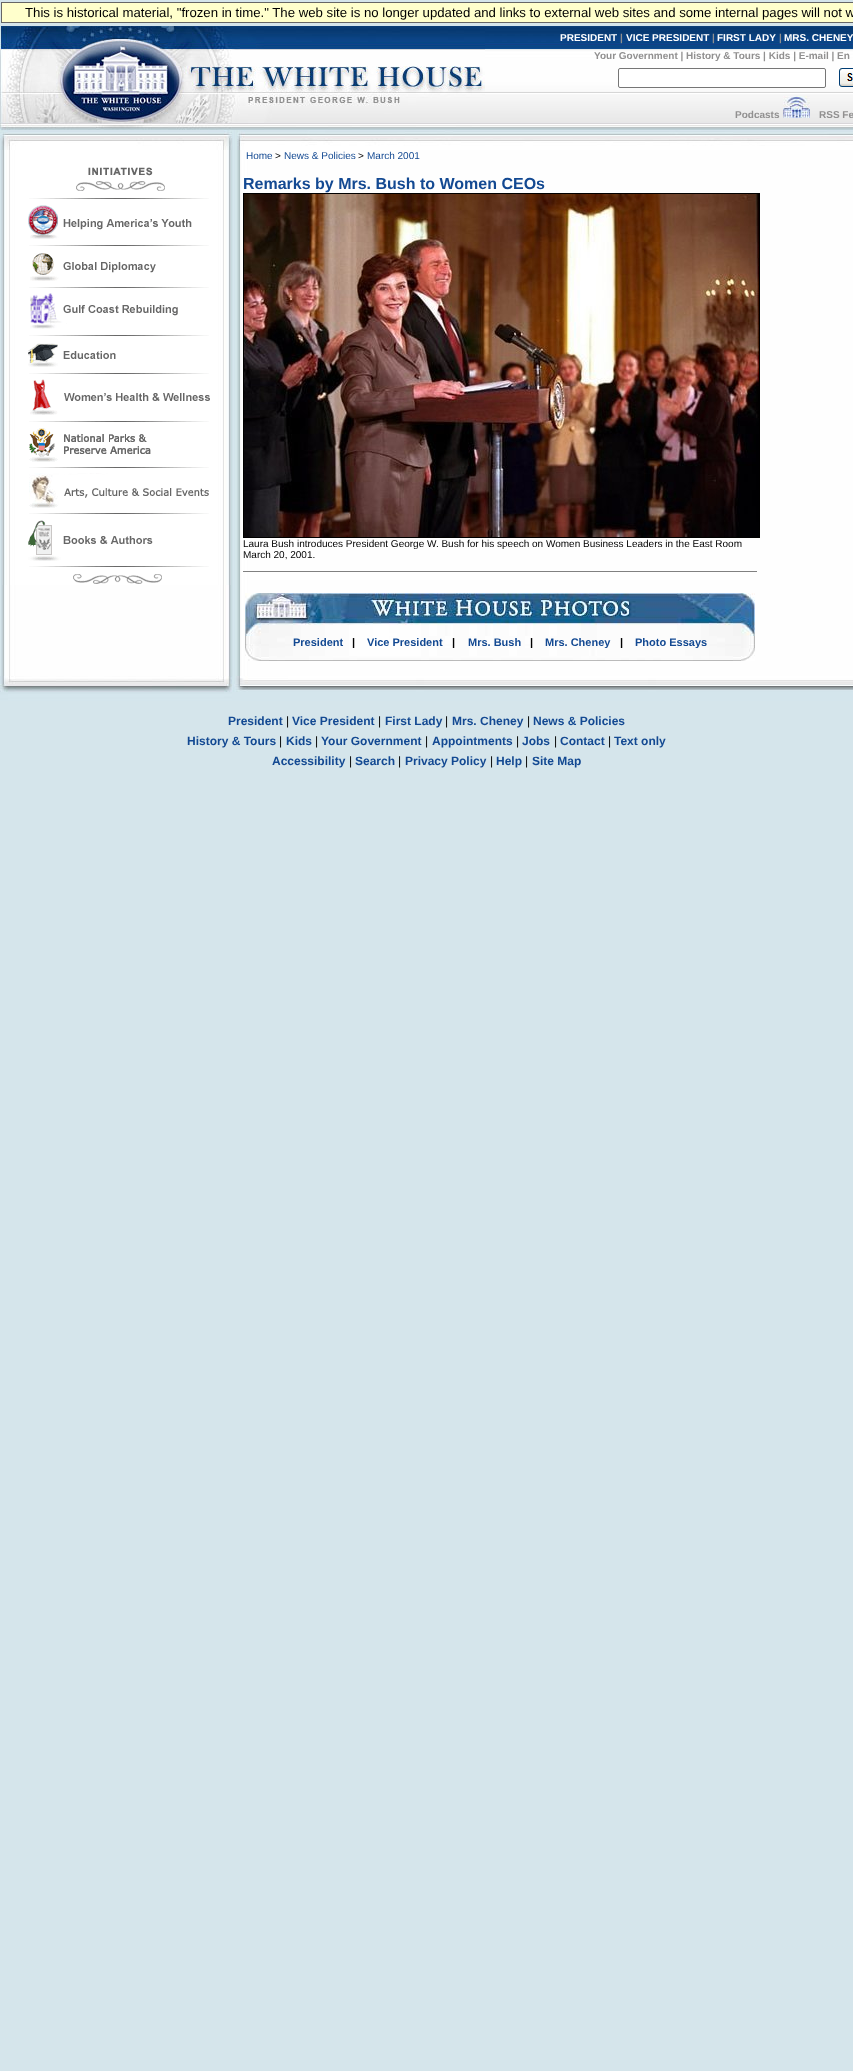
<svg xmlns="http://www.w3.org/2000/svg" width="853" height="2071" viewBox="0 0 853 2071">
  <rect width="100%" height="100%" fill="rgb(213,229,235)"/>
  <rect x="1.5" y="2.5" width="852" height="20" fill="rgb(255,255,204)" stroke="rgb(102,102,102)"/>
  <text x="25" y="17" font-family="Liberation Sans" font-size="13.2" fill="rgb(0,0,0)">This is historical material, "frozen in time." The web site is no longer updated and links to external web sites and some internal pages will not w</text>
  <image x="485" y="26" width="368" height="104" href="pic1.png"/>
  <image x="0" y="26" width="485" height="104" href="pic2.png"/>
  <text x="560" y="41" font-family="Liberation Sans" font-size="10" font-weight="bold" fill="rgb(255,255,255)">PRESIDENT</text>
  <text x="620" y="41" font-family="Liberation Sans" font-size="10" font-weight="bold" fill="rgb(145,144,144)">|</text>
  <text x="626" y="41" font-family="Liberation Sans" font-size="10" font-weight="bold" fill="rgb(255,255,255)">VICE PRESIDENT</text>
  <text x="712" y="41" font-family="Liberation Sans" font-size="10" font-weight="bold" fill="rgb(145,144,144)">|</text>
  <text x="717" y="41" font-family="Liberation Sans" font-size="10" font-weight="bold" fill="rgb(255,255,255)">FIRST LADY</text>
  <text x="779" y="41" font-family="Liberation Sans" font-size="10" font-weight="bold" fill="rgb(145,144,144)">|</text>
  <text x="784" y="41" font-family="Liberation Sans" font-size="10" font-weight="bold" fill="rgb(255,255,255)">MRS. CHENEY</text>
  <text x="594" y="59" font-family="Liberation Sans" font-size="10" font-weight="bold" fill="rgb(145,144,144)">Your Government | History &amp; Tours | Kids | E-mail | En</text>
  <rect x="618.5" y="68.5" width="207" height="19" rx="1.5" fill="rgb(255,255,255)" stroke="rgb(118,118,118)"/>
  <image x="839" y="68" width="14" height="19" href="pic3.png"/>
  <text x="735" y="118" font-family="Liberation Sans" font-size="10" font-weight="bold" fill="rgb(145,144,144)">Podcasts</text>
  <image x="783" y="96" width="27" height="22" href="pic4.png"/>
  <text x="819" y="118" font-family="Liberation Sans" font-size="10" font-weight="bold" fill="rgb(145,144,144)">RSS Fe</text>
  <image x="1" y="130" width="852" height="546" href="pic5.png"/>
  <image x="2" y="150" width="229" height="435" href="pic6.png"/>
  <image x="0" y="130" width="233" height="20" href="pic7.png"/>
  <image x="76" y="167" width="89" height="24" href="pic8.png"/>
  <image x="29" y="198" width="180" height="1" href="pic9.png"/>
  <image x="28" y="205" width="164" height="34" href="pic10.png"/>
  <image x="29" y="245" width="180" height="1" href="pic9.png"/>
  <image x="30" y="253" width="126" height="28" href="pic11.png"/>
  <image x="29" y="287" width="180" height="1" href="pic9.png"/>
  <image x="30" y="293" width="148" height="36" href="pic12.png"/>
  <image x="29" y="335" width="180" height="1" href="pic9.png"/>
  <image x="28" y="343" width="88" height="24" href="pic13.png"/>
  <image x="29" y="373" width="180" height="1" href="pic9.png"/>
  <image x="30" y="379" width="180" height="36" href="pic14.png"/>
  <image x="29" y="421" width="180" height="1" href="pic9.png"/>
  <image x="29" y="428" width="122" height="34" href="pic15.png"/>
  <image x="29" y="467" width="180" height="1" href="pic9.png"/>
  <image x="29" y="473" width="180" height="35" href="pic16.png"/>
  <image x="29" y="513" width="180" height="1" href="pic9.png"/>
  <image x="28" y="520" width="125" height="41" href="pic17.png"/>
  <image x="29" y="566" width="180" height="1" href="pic9.png"/>
  <image x="73" y="574" width="89" height="10" href="pic18.png"/>
  <image x="237" y="130" width="616" height="20" href="pic19.png"/>
  <text x="246" y="159" font-family="Liberation Sans" font-size="10" fill="rgb(19,73,146)">Home</text>
  <text x="275" y="159" font-family="Liberation Sans" font-size="10" fill="rgb(0,0,0)">&gt;</text>
  <text x="284" y="159" font-family="Liberation Sans" font-size="10" fill="rgb(19,73,146)">News &amp; Policies</text>
  <text x="358" y="159" font-family="Liberation Sans" font-size="10" fill="rgb(0,0,0)">&gt;</text>
  <text x="367" y="159" font-family="Liberation Sans" font-size="10" fill="rgb(19,73,146)">March 2001</text>
  <text x="243" y="189" font-family="Liberation Sans" font-size="16" font-weight="bold" fill="rgb(19,73,146)">Remarks by Mrs. Bush to Women CEOs</text>
  <rect x="243" y="193" width="517" height="345" fill="rgb(0,0,0)"/>
  <image x="244" y="194" width="515" height="343" href="pic20.png"/>
  <g font-family="Liberation Sans" font-size="10" fill="rgb(0,0,0)">
    <text>
      <tspan x="243" y="547">Laura Bush introduces President George W. Bush for his speech on Women Business Leaders in the East Room</tspan>
      <tspan x="243" y="558">March 20, 2001.</tspan>
    </text>
  </g>
  <rect x="243" y="571" width="514" height="1" fill="rgb(128,128,128)"/>
  <image x="245" y="593" width="510" height="43" href="pic21.png"/>
  <image x="245" y="636" width="510" height="12" href="pic22.png"/>
  <text x="293" y="646" font-family="Liberation Sans" font-size="11" font-weight="bold" fill="rgb(19,73,146)">President</text>
  <text x="352" y="646" font-family="Liberation Sans" font-size="11" font-weight="bold" fill="rgb(0,0,0)">|</text>
  <text x="367" y="646" font-family="Liberation Sans" font-size="11" font-weight="bold" fill="rgb(19,73,146)">Vice President</text>
  <text x="452" y="646" font-family="Liberation Sans" font-size="11" font-weight="bold" fill="rgb(0,0,0)">|</text>
  <text x="468" y="646" font-family="Liberation Sans" font-size="11" font-weight="bold" fill="rgb(19,73,146)">Mrs. Bush</text>
  <text x="530" y="646" font-family="Liberation Sans" font-size="11" font-weight="bold" fill="rgb(0,0,0)">|</text>
  <text x="545" y="646" font-family="Liberation Sans" font-size="11" font-weight="bold" fill="rgb(19,73,146)">Mrs. Cheney</text>
  <text x="620" y="646" font-family="Liberation Sans" font-size="11" font-weight="bold" fill="rgb(0,0,0)">|</text>
  <text x="635" y="646" font-family="Liberation Sans" font-size="11" font-weight="bold" fill="rgb(19,73,146)">Photo Essays</text>
  <image x="245" y="648" width="510" height="13" href="pic23.png"/>
  <image x="0" y="676" width="853" height="25" href="pic24.png"/>
  <text x="228" y="725" font-family="Liberation Sans" font-size="12" font-weight="bold" fill="rgb(19,73,146)">President</text>
  <text x="286" y="725" font-family="Liberation Sans" font-size="12" fill="rgb(0,0,0)">|</text>
  <text x="292" y="725" font-family="Liberation Sans" font-size="12" font-weight="bold" fill="rgb(19,73,146)">Vice President</text>
  <text x="378" y="725" font-family="Liberation Sans" font-size="12" fill="rgb(0,0,0)">|</text>
  <text x="385" y="725" font-family="Liberation Sans" font-size="12" font-weight="bold" fill="rgb(19,73,146)">First Lady</text>
  <text x="445" y="725" font-family="Liberation Sans" font-size="12" fill="rgb(0,0,0)">|</text>
  <text x="452" y="725" font-family="Liberation Sans" font-size="12" font-weight="bold" fill="rgb(19,73,146)">Mrs. Cheney</text>
  <text x="527" y="725" font-family="Liberation Sans" font-size="12" fill="rgb(0,0,0)">|</text>
  <g font-family="Liberation Sans" font-size="12" font-weight="bold" fill="rgb(19,73,146)">
    <text x="533" y="725">News &amp; Policies</text>
    <text x="187" y="745">History &amp; Tours</text>
  </g>
  <text x="279" y="745" font-family="Liberation Sans" font-size="12" fill="rgb(0,0,0)">|</text>
  <text x="286" y="745" font-family="Liberation Sans" font-size="12" font-weight="bold" fill="rgb(19,73,146)">Kids</text>
  <text x="315" y="745" font-family="Liberation Sans" font-size="12" fill="rgb(0,0,0)">|</text>
  <text x="321" y="745" font-family="Liberation Sans" font-size="12" font-weight="bold" fill="rgb(19,73,146)">Your Government</text>
  <text x="425" y="745" font-family="Liberation Sans" font-size="12" fill="rgb(0,0,0)">|</text>
  <text x="432" y="745" font-family="Liberation Sans" font-size="12" font-weight="bold" fill="rgb(19,73,146)">Appointments</text>
  <text x="516" y="745" font-family="Liberation Sans" font-size="12" fill="rgb(0,0,0)">|</text>
  <text x="522" y="745" font-family="Liberation Sans" font-size="12" font-weight="bold" fill="rgb(19,73,146)">Jobs</text>
  <text x="554" y="745" font-family="Liberation Sans" font-size="12" fill="rgb(0,0,0)">|</text>
  <text x="560" y="745" font-family="Liberation Sans" font-size="12" font-weight="bold" fill="rgb(19,73,146)">Contact</text>
  <text x="608" y="745" font-family="Liberation Sans" font-size="12" fill="rgb(0,0,0)">|</text>
  <g font-family="Liberation Sans" font-size="12" font-weight="bold" fill="rgb(19,73,146)">
    <text x="614" y="745">Text only</text>
    <text x="272" y="765">Accessibility</text>
  </g>
  <text x="349" y="765" font-family="Liberation Sans" font-size="12" fill="rgb(0,0,0)">|</text>
  <text x="355" y="765" font-family="Liberation Sans" font-size="12" font-weight="bold" fill="rgb(19,73,146)">Search</text>
  <text x="398" y="765" font-family="Liberation Sans" font-size="12" fill="rgb(0,0,0)">|</text>
  <text x="405" y="765" font-family="Liberation Sans" font-size="12" font-weight="bold" fill="rgb(19,73,146)">Privacy Policy</text>
  <text x="490" y="765" font-family="Liberation Sans" font-size="12" fill="rgb(0,0,0)">|</text>
  <text x="496" y="765" font-family="Liberation Sans" font-size="12" font-weight="bold" fill="rgb(19,73,146)">Help</text>
  <text x="525" y="765" font-family="Liberation Sans" font-size="12" fill="rgb(0,0,0)">|</text>
  <text x="532" y="765" font-family="Liberation Sans" font-size="12" font-weight="bold" fill="rgb(19,73,146)">Site Map</text>
</svg>
